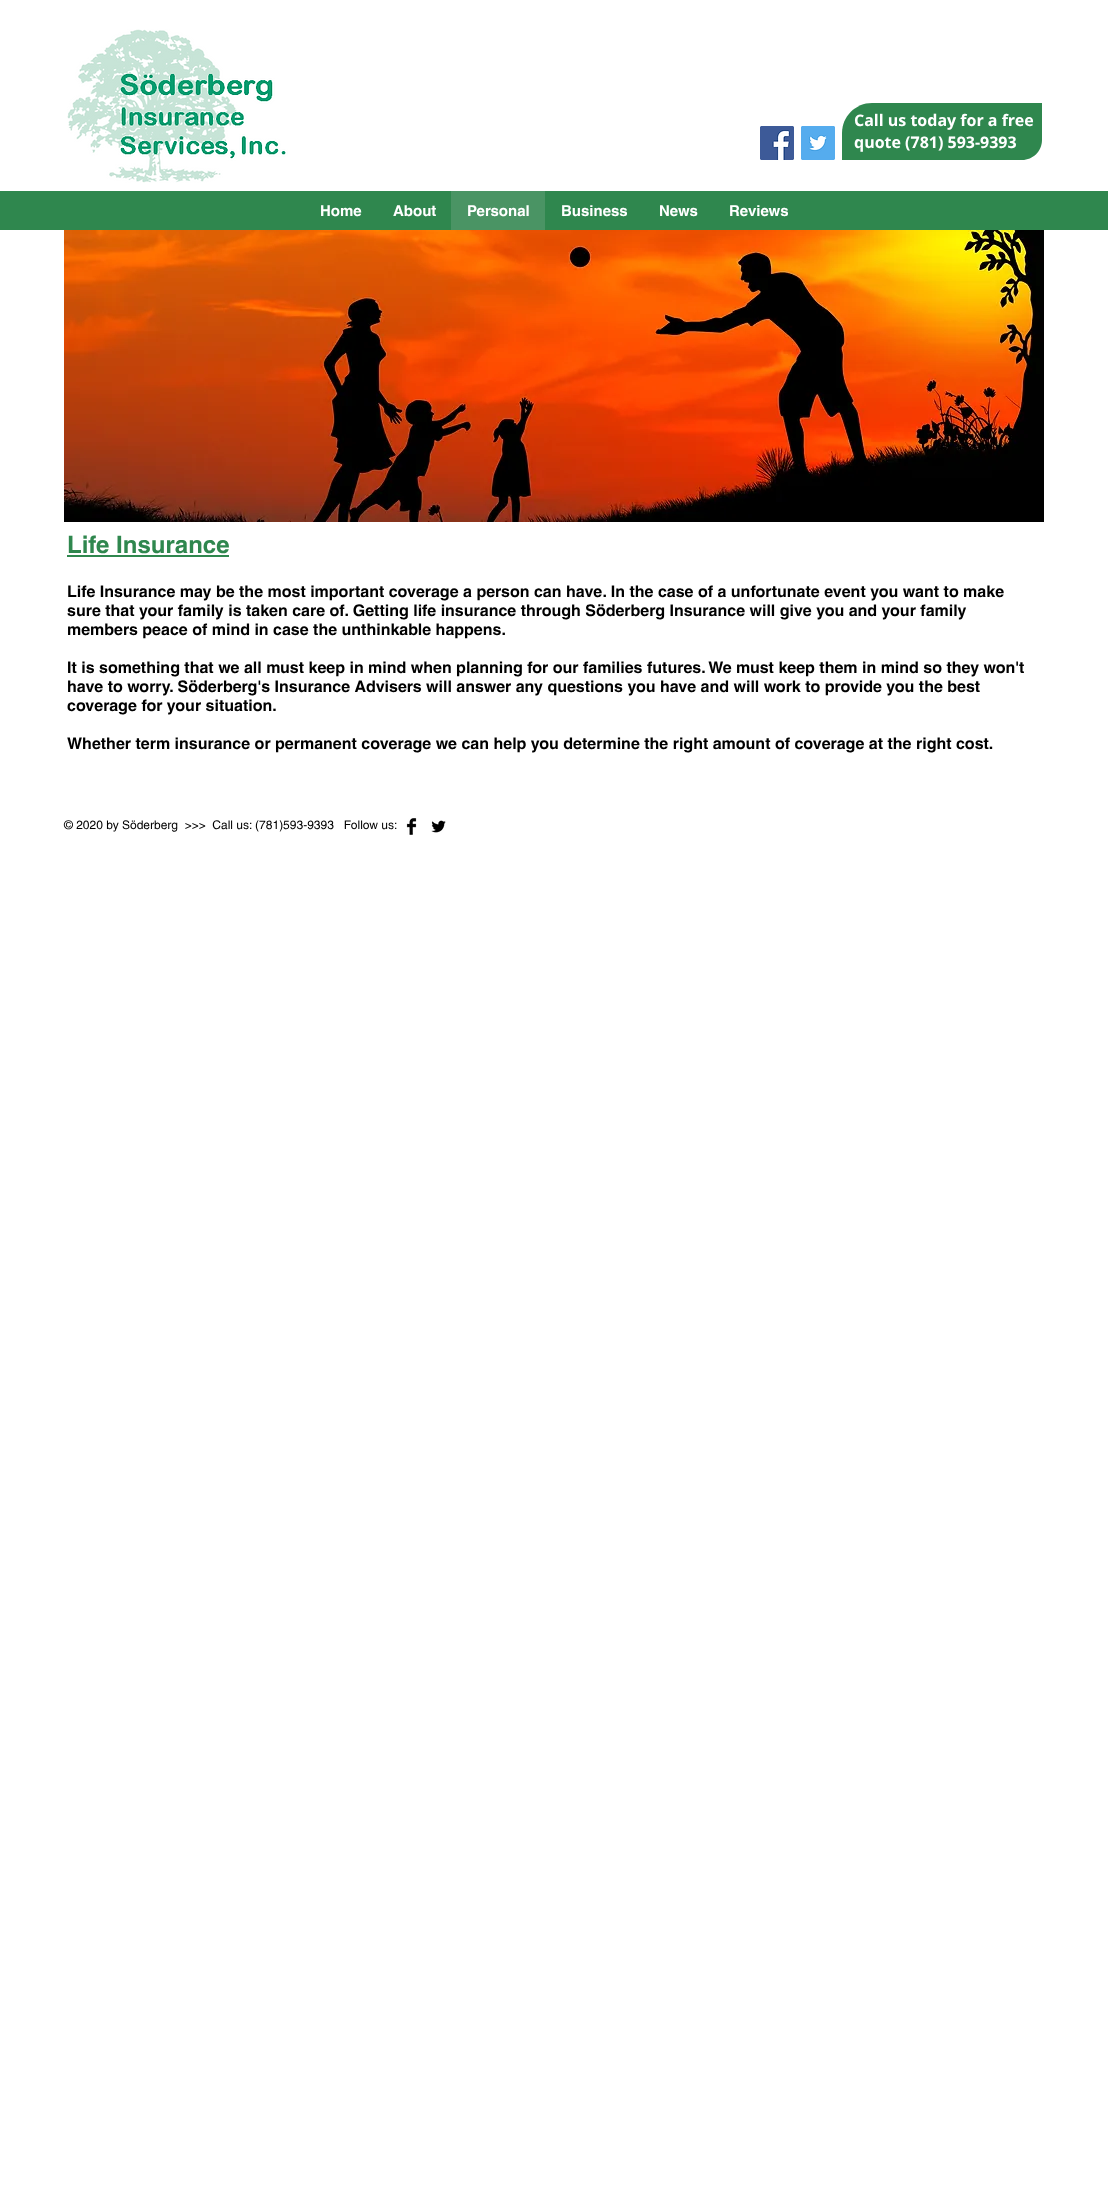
<svg xmlns="http://www.w3.org/2000/svg" width="1108" height="2187" viewBox="0 0 1108 2187">
  <rect width="100%" height="100%" fill="rgb(255,255,255)"/>
  <image x="67" y="29" width="221" height="154" href="pic1.png"/>
  <image x="760" y="126" width="34" height="34" href="pic2.png"/>
  <image x="801" y="126" width="34" height="34" href="pic3.png"/>
  <path d="M872 103H1042V140C1042 151 1033 160 1022 160H842V133C842 116.5 855.5 103 872 103Z" fill="rgb(47,135,78)"/>
  <g font-family="Open Sans" font-size="16" font-weight="bold" fill="rgb(255,255,255)">
    <text>
      <tspan x="854" y="126">Call us today for a free</tspan>
      <tspan x="854" y="148">quote (781) 593-9393</tspan>
    </text>
  </g>
  <rect x="0" y="191" width="1108" height="39" fill="rgb(47,135,78)"/>
  <g font-family="helvetica" font-size="15" font-weight="bold" fill="rgb(255,255,255)">
    <text x="320" y="216">Home</text>
    <text x="393" y="216">About</text>
  </g>
  <rect x="451" y="191" width="94" height="39" fill="rgb(74,148,100)"/>
  <g font-family="helvetica" font-size="15" font-weight="bold" fill="rgb(255,255,255)">
    <text x="467" y="216">Personal</text>
    <text x="561" y="216">Business</text>
    <text x="659" y="216">News</text>
    <text x="729" y="216">Reviews</text>
  </g>
  <image x="64" y="230" width="980" height="292" href="pic4.png"/>
  <text x="67" y="553" font-family="helvetica" font-size="24" font-weight="bold" fill="rgb(47,135,78)">Life Insurance</text>
  <rect x="67" y="555" width="162" height="2" fill="rgb(47,135,78)"/>
  <g font-family="helvetica" font-size="16" font-weight="bold" fill="rgb(0,0,0)">
    <text>
      <tspan x="67" y="597">Life Insurance may be the most important coverage a person can have. In the case of a unfortunate event you want to make</tspan>
      <tspan x="67" y="616">sure that your family is taken care of. Getting life insurance through Söderberg Insurance will give you and your family</tspan>
      <tspan x="67" y="635">members peace of mind in case the unthinkable happens.</tspan>
    </text>
    <text>
      <tspan x="67" y="673">It is something that we all must keep in mind when planning for our families futures. We must keep them in mind so they won't</tspan>
      <tspan x="67" y="692">have to worry. Söderberg's Insurance Advisers will answer any questions you have and will work to provide you the best</tspan>
      <tspan x="67" y="711">coverage for your situation.</tspan>
    </text>
    <text x="67" y="749">Whether term insurance or permanent coverage we can help you determine the right amount of coverage at the right cost.</text>
  </g>
  <text x="64" y="829" font-family="helvetica" font-size="12" fill="rgb(0,0,0)" xml:space="preserve">© 2020 by Söderberg  &gt;&gt;&gt;  Call us: (781)593-9393   Follow us:</text>
  <image x="406" y="818" width="11" height="17" href="pic5.png"/>
  <image x="431" y="820" width="15" height="13" href="pic6.png"/>
</svg>
